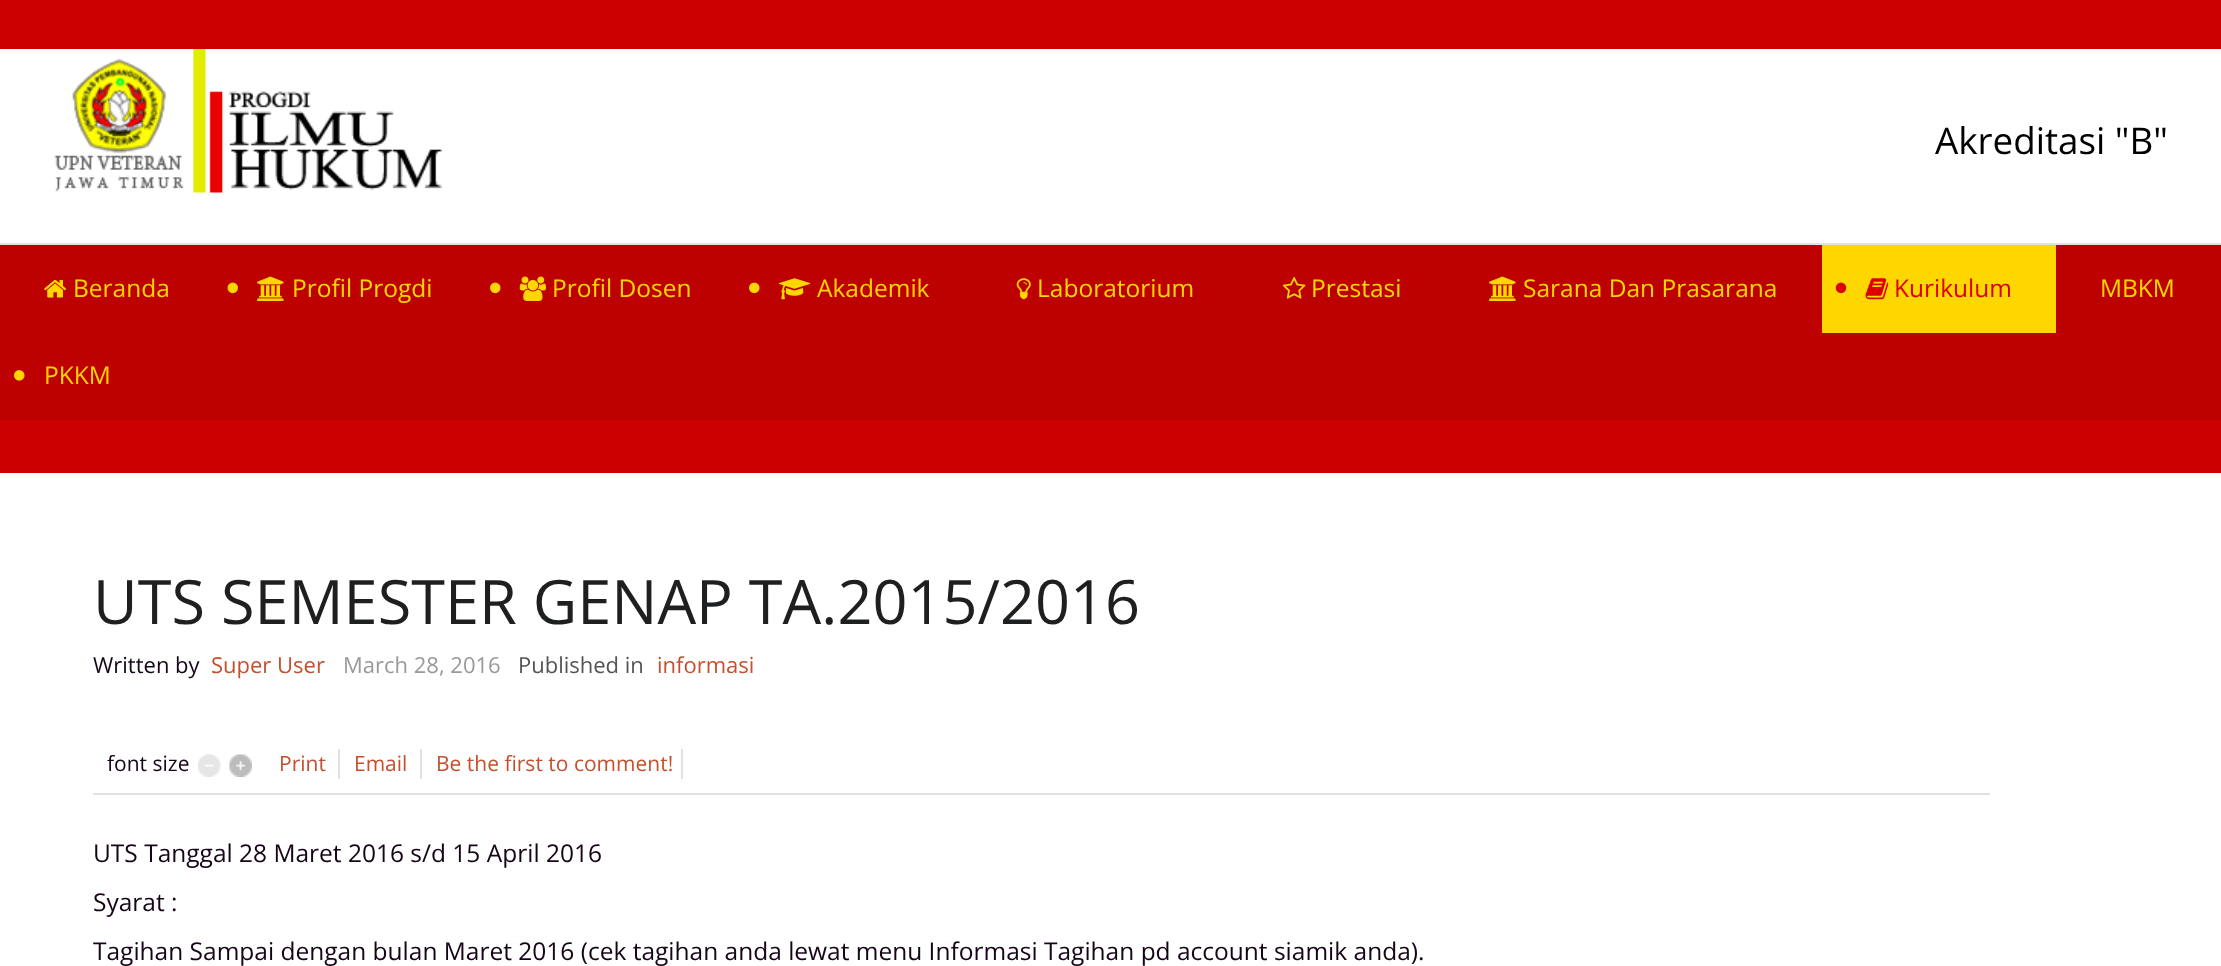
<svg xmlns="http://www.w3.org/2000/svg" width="2221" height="966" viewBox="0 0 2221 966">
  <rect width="100%" height="100%" fill="rgb(204,0,0)"/>
  <rect x="0" y="49" width="2221" height="194" fill="rgb(255,255,255)"/>
  <image x="54" y="49" width="389" height="144" href="pic1.png"/>
  <text x="1935" y="154" font-family="Open Sans" font-size="36.75" fill="rgb(0,0,0)">Akreditasi "B"</text>
  <rect x="0" y="245" width="2221" height="175" fill="rgb(189,0,0)"/>
  <rect x="0" y="243" width="2221" height="2" fill="rgb(226,226,226)"/>
  <image x="44" y="280" width="23" height="18" href="pic2.png"/>
  <text x="73" y="297" font-family="Open Sans" font-size="24.5" fill="rgb(255,215,0)">Beranda</text>
  <image x="227" y="282" width="11" height="12" href="pic3.png"/>
  <image x="257" y="276" width="27" height="25" href="pic4.png"/>
  <text x="292" y="297" font-family="Open Sans" font-size="24.5" fill="rgb(255,215,0)">Profil Progdi</text>
  <image x="490" y="282" width="11" height="12" href="pic5.png"/>
  <image x="519" y="276" width="27" height="25" href="pic6.png"/>
  <text x="552" y="297" font-family="Open Sans" font-size="24.5" fill="rgb(255,215,0)">Profil Dosen</text>
  <image x="749" y="282" width="11" height="12" href="pic5.png"/>
  <image x="778" y="278" width="33" height="22" href="pic7.png"/>
  <text x="817" y="297" font-family="Open Sans" font-size="24.5" fill="rgb(255,215,0)">Akademik</text>
  <image x="1016" y="278" width="15" height="22" href="pic8.png"/>
  <text x="1037" y="297" font-family="Open Sans" font-size="24.5" fill="rgb(255,215,0)">Laboratorium</text>
  <image x="1282" y="277" width="24" height="22" href="pic9.png"/>
  <text x="1311" y="297" font-family="Open Sans" font-size="24.5" fill="rgb(255,215,0)">Prestasi</text>
  <image x="1489" y="276" width="27" height="25" href="pic4.png"/>
  <text x="1523" y="297" font-family="Open Sans" font-size="24.5" fill="rgb(255,215,0)">Sarana Dan Prasarana</text>
  <rect x="1822" y="245" width="234" height="88" fill="rgb(255,215,0)"/>
  <image x="1835" y="282" width="12" height="12" href="pic10.png"/>
  <image x="1865" y="278" width="24" height="22" href="pic11.png"/>
  <text x="1894" y="297" font-family="Open Sans" font-size="24.5" fill="rgb(222,0,0)">Kurikulum</text>
  <text x="2100" y="297" font-family="Open Sans" font-size="24.5" fill="rgb(255,215,0)">MBKM</text>
  <image x="14" y="370" width="11" height="11" href="pic12.png"/>
  <text x="44" y="384" font-family="Open Sans" font-size="24.5" fill="rgb(255,215,0)">PKKM</text>
  <rect x="0" y="473" width="2221" height="493" fill="rgb(255,255,255)"/>
  <text x="93" y="624" font-family="Open Sans" font-size="61.25" fill="rgb(30,31,33)">UTS SEMESTER GENAP TA.2015/2016</text>
  <text x="93" y="673" font-family="Open Sans" font-size="22" fill="rgb(21,5,23)">Written by</text>
  <text x="211" y="673" font-family="Open Sans" font-size="22" fill="rgb(195,81,47)">Super User</text>
  <text x="343" y="673" font-family="Open Sans" font-size="22" fill="rgb(153,153,153)">March 28, 2016</text>
  <text x="518" y="673" font-family="Open Sans" font-size="22" fill="rgb(85,85,85)">Published in</text>
  <text x="657" y="673" font-family="Open Sans" font-size="22" fill="rgb(195,81,47)">informasi</text>
  <rect x="93" y="793" width="1897" height="2" fill="rgb(226,226,226)"/>
  <text x="107" y="771" font-family="Open Sans" font-size="21" fill="rgb(21,5,23)">font size</text>
  <image x="198" y="754" width="23" height="23" href="pic13.png"/>
  <image x="229" y="754" width="23" height="23" href="pic14.png"/>
  <text x="279" y="771" font-family="Open Sans" font-size="21" fill="rgb(195,81,47)">Print</text>
  <rect x="338" y="749" width="2" height="30" fill="rgb(226,226,226)"/>
  <text x="354" y="771" font-family="Open Sans" font-size="21" fill="rgb(195,81,47)">Email</text>
  <rect x="420" y="749" width="2" height="30" fill="rgb(226,226,226)"/>
  <text x="436" y="771" font-family="Open Sans" font-size="21" fill="rgb(195,81,47)">Be the first to comment!</text>
  <rect x="681" y="749" width="2" height="30" fill="rgb(226,226,226)"/>
  <g font-family="Open Sans" font-size="24.5" fill="rgb(21,5,23)">
    <text x="93" y="862">UTS Tanggal 28 Maret 2016 s/d 15 April 2016</text>
    <text x="93" y="911">Syarat :</text>
    <text x="93" y="960">Tagihan Sampai dengan bulan Maret 2016 (cek tagihan anda lewat menu Informasi Tagihan pd account siamik anda).</text>
  </g>
</svg>
